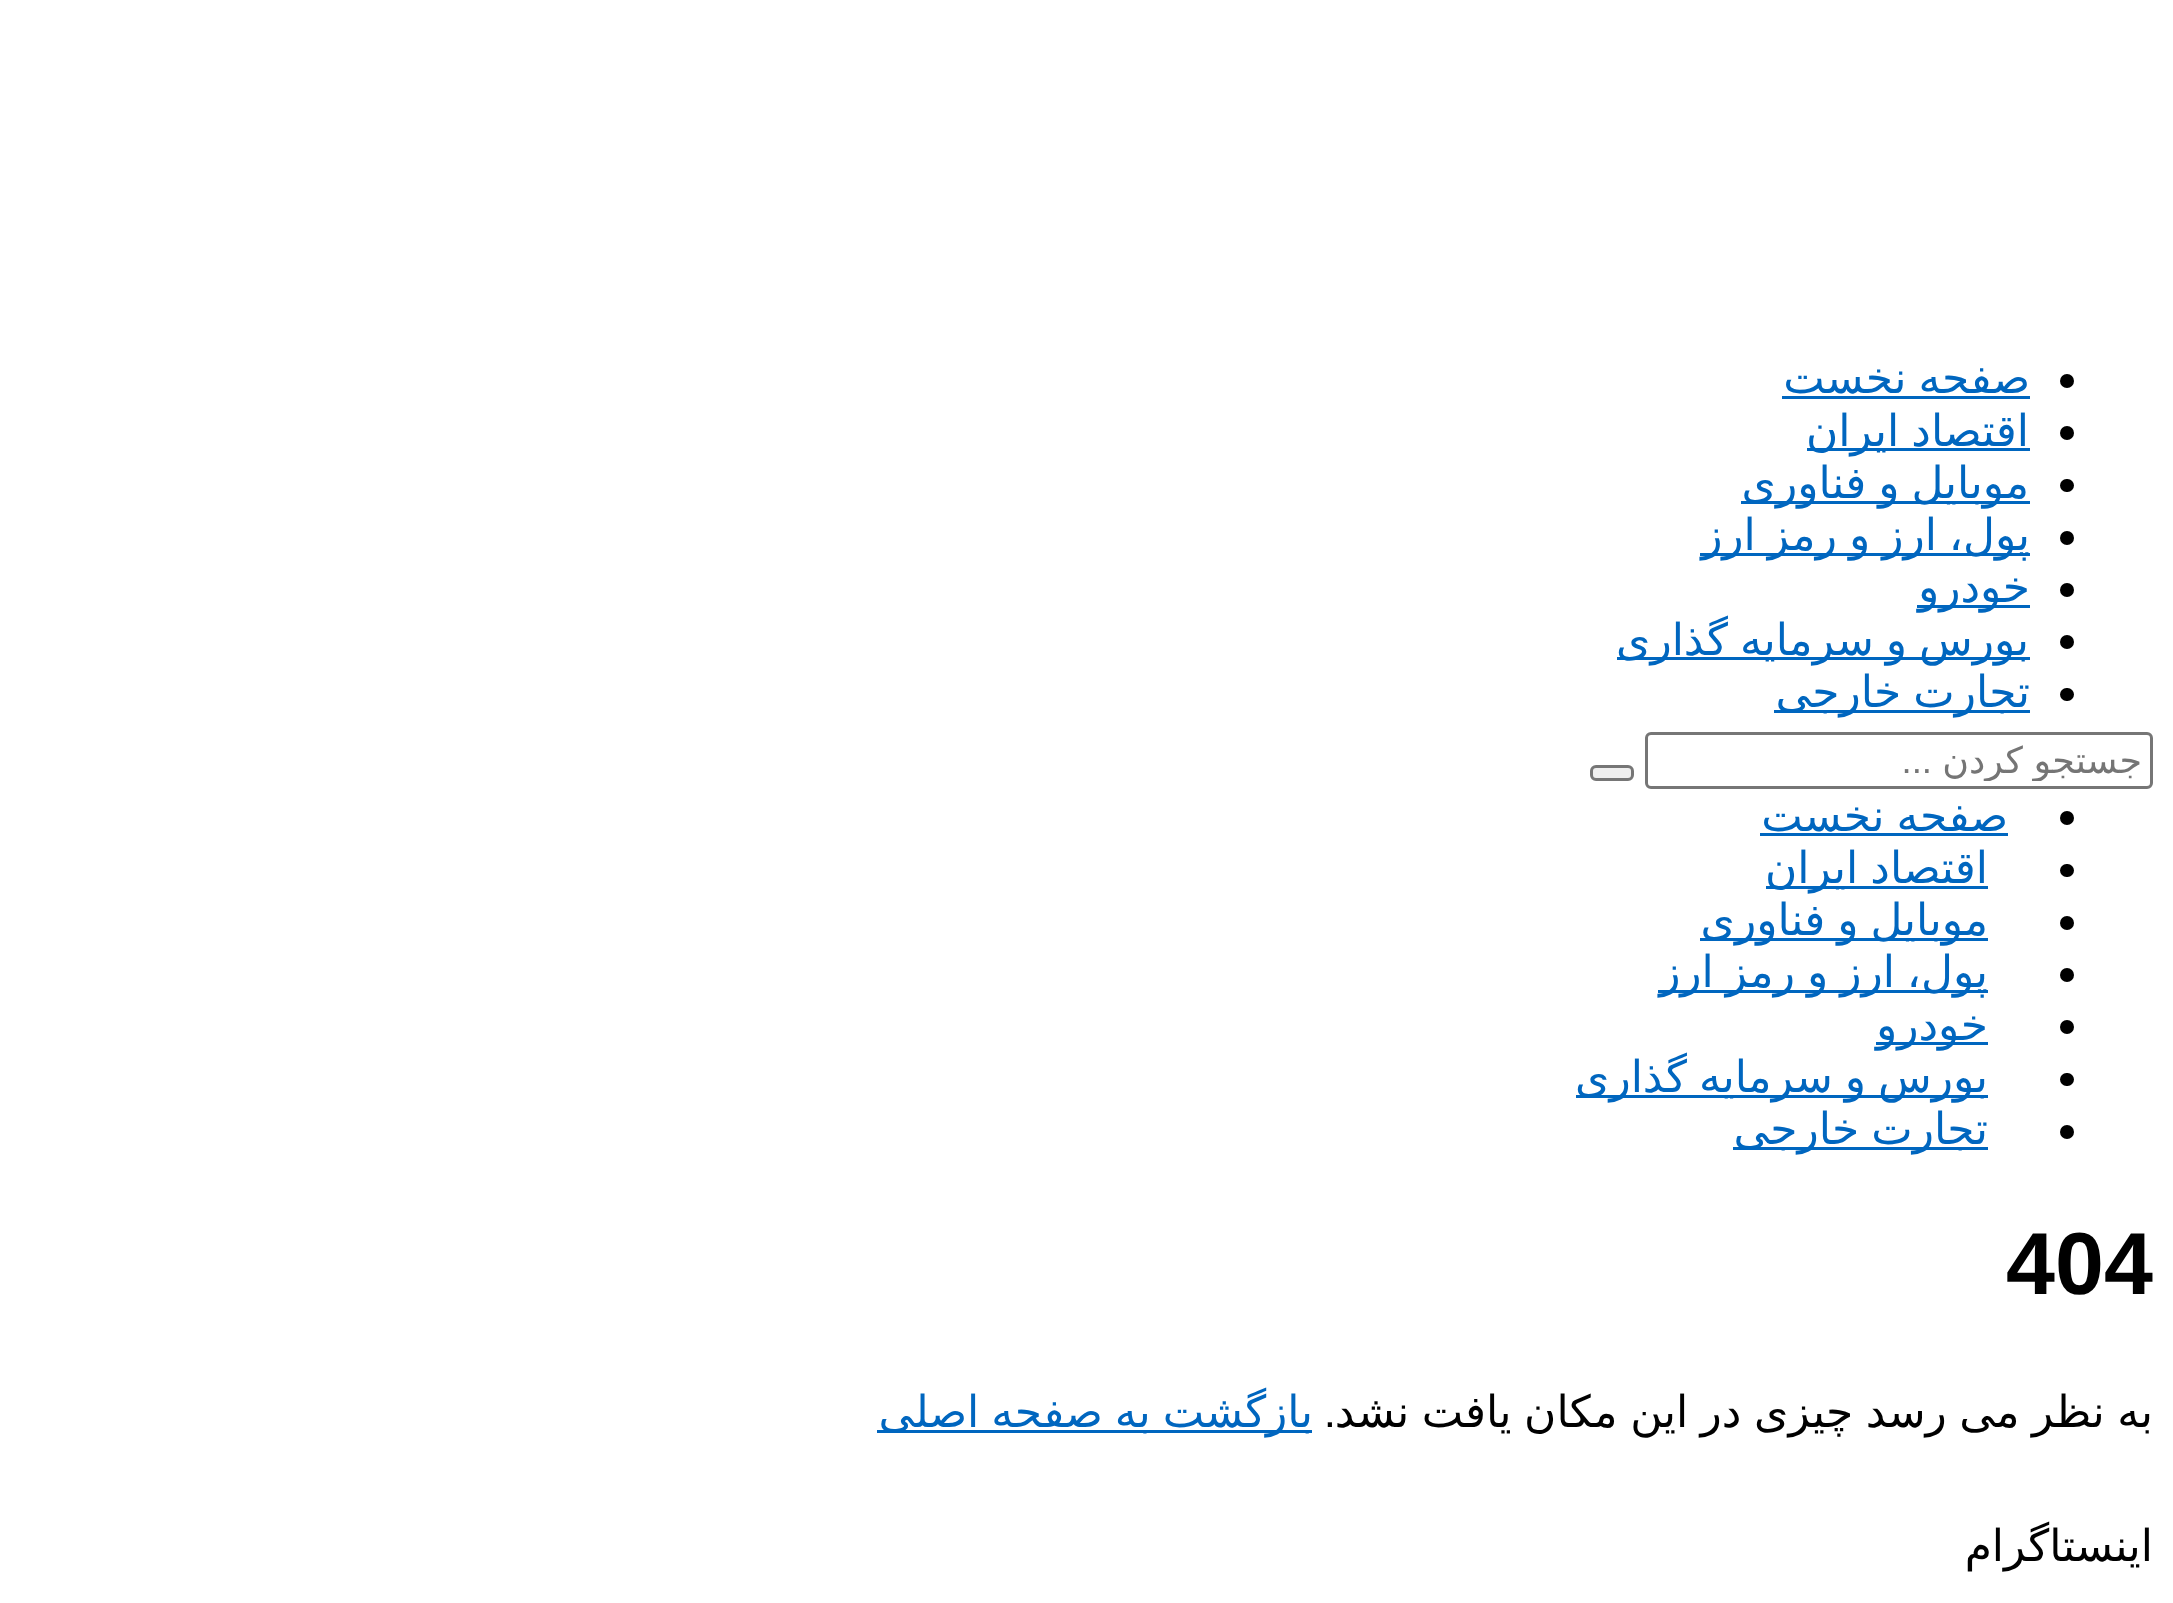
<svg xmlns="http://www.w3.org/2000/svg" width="2173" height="1603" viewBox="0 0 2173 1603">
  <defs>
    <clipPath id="clip1"><rect x="1656" y="740" width="486" height="41"/></clipPath>
  </defs>
  <rect width="100%" height="100%" fill="rgb(255,255,255)"/>
  <circle cx="2067" cy="381" r="7" fill="rgb(0,0,0)"/>
  <text x="2030" y="393" word-spacing="-2" font-family="DejaVu Sans" font-size="44" direction="rtl" fill="rgb(0,102,191)">صفحه نخست</text>
  <rect x="1782" y="396" width="248" height="3" fill="rgb(0,102,191)"/>
  <circle cx="2067" cy="433" r="7" fill="rgb(0,0,0)"/>
  <rect x="1807" y="448" width="223" height="3" fill="rgb(0,102,191)"/>
  <text x="2029" y="446" word-spacing="-2" font-family="DejaVu Sans" font-size="44" direction="rtl" fill="rgb(0,102,191)">اقتصاد ایران</text>
  <rect x="2060" y="479" width="14" height="13" rx="6.5" fill="rgb(0,0,0)"/>
  <rect x="1741" y="501" width="289" height="3" fill="rgb(0,102,191)"/>
  <text x="2029" y="498" word-spacing="-2" font-family="DejaVu Sans" font-size="44" direction="rtl" fill="rgb(0,102,191)">موبایل و فناوری</text>
  <circle cx="2067" cy="538" r="7" fill="rgb(0,0,0)"/>
  <rect x="1700" y="553" width="330" height="3" fill="rgb(0,102,191)"/>
  <text x="2030" y="550" word-spacing="-2" font-family="DejaVu Sans" font-size="44" direction="rtl" fill="rgb(0,102,191)">پول، ارز و رمز ارز</text>
  <circle cx="2067" cy="590" r="7" fill="rgb(0,0,0)"/>
  <rect x="1917" y="605" width="113" height="3" fill="rgb(0,102,191)"/>
  <text x="2030" y="602" font-family="DejaVu Sans" font-size="44" direction="rtl" fill="rgb(0,102,191)">خودرو</text>
  <circle cx="2067" cy="642" r="7" fill="rgb(0,0,0)"/>
  <rect x="1617" y="657" width="413" height="3" fill="rgb(0,102,191)"/>
  <text x="2029" y="655" word-spacing="-2" font-family="DejaVu Sans" font-size="44" direction="rtl" fill="rgb(0,102,191)">بورس و سرمایه گذاری</text>
  <rect x="2060" y="688" width="14" height="13" rx="6.5" fill="rgb(0,0,0)"/>
  <rect x="1774" y="710" width="256" height="3" fill="rgb(0,102,191)"/>
  <text x="2030" y="707" word-spacing="-2" font-family="DejaVu Sans" font-size="44" direction="rtl" fill="rgb(0,102,191)">تجارت خارجی</text>
  <rect x="1646.5" y="733.5" width="505" height="54" rx="4.5" fill="none" stroke="rgb(118,118,118)" stroke-width="3"/>
  <g clip-path="url(#clip1)">
    <text x="2142" y="773" word-spacing="-1" font-family="DejaVu Sans" font-size="36.5" direction="rtl" fill="rgb(117,117,117)">جستجو کردن</text>
  </g>
  <text x="1932" y="773" font-family="Liberation Sans" font-size="36.5" direction="rtl" fill="rgb(117,117,117)">...</text>
  <rect x="1591.5" y="766.5" width="41" height="13" rx="4.5" fill="rgb(239,239,239)" stroke="rgb(118,118,118)" stroke-width="3"/>
  <circle cx="2067" cy="818" r="7" fill="rgb(0,0,0)"/>
  <text x="2008" y="831" word-spacing="-2" font-family="DejaVu Sans" font-size="44" direction="rtl" fill="rgb(0,102,191)">صفحه نخست</text>
  <rect x="1760" y="833" width="248" height="3" fill="rgb(0,102,191)"/>
  <rect x="2060" y="864" width="14" height="13" rx="6.5" fill="rgb(0,0,0)"/>
  <rect x="1766" y="886" width="222" height="3" fill="rgb(0,102,191)"/>
  <text x="1988" y="883" word-spacing="-2" font-family="DejaVu Sans" font-size="44" direction="rtl" fill="rgb(0,102,191)">اقتصاد ایران</text>
  <circle cx="2067" cy="923" r="7" fill="rgb(0,0,0)"/>
  <rect x="1700" y="938" width="288" height="3" fill="rgb(0,102,191)"/>
  <text x="1988" y="935" word-spacing="-2" font-family="DejaVu Sans" font-size="44" direction="rtl" fill="rgb(0,102,191)">موبایل و فناوری</text>
  <circle cx="2067" cy="975" r="7" fill="rgb(0,0,0)"/>
  <rect x="1658" y="990" width="330" height="3" fill="rgb(0,102,191)"/>
  <text x="1988" y="987" word-spacing="-2" font-family="DejaVu Sans" font-size="44" direction="rtl" fill="rgb(0,102,191)">پول، ارز و رمز ارز</text>
  <circle cx="2067" cy="1027" r="7" fill="rgb(0,0,0)"/>
  <rect x="1876" y="1042" width="112" height="3" fill="rgb(0,102,191)"/>
  <text x="1988" y="1040" font-family="DejaVu Sans" font-size="44" direction="rtl" fill="rgb(0,102,191)">خودرو</text>
  <rect x="2060" y="1073" width="14" height="13" rx="6.5" fill="rgb(0,0,0)"/>
  <rect x="1576" y="1095" width="412" height="3" fill="rgb(0,102,191)"/>
  <text x="1988" y="1092" word-spacing="-2" font-family="DejaVu Sans" font-size="44" direction="rtl" fill="rgb(0,102,191)">بورس و سرمایه گذاری</text>
  <circle cx="2067" cy="1132" r="7" fill="rgb(0,0,0)"/>
  <rect x="1733" y="1147" width="255" height="3" fill="rgb(0,102,191)"/>
  <text x="1988" y="1144" word-spacing="-2" font-family="DejaVu Sans" font-size="44" direction="rtl" fill="rgb(0,102,191)">تجارت خارجی</text>
  <text x="2006" y="1294" font-family="Liberation Sans" font-size="88" font-weight="bold" fill="rgb(0,0,0)">404</text>
  <text x="2153" y="1427" word-spacing="-1.5" font-family="DejaVu Sans" font-size="44" direction="rtl" fill="rgb(0,0,0)">به نظر می رسد چیزی در این مکان یافت نشد</text>
  <text x="1336" y="1427" font-family="Liberation Sans" font-size="44" direction="rtl" fill="rgb(0,0,0)">.</text>
  <rect x="877" y="1430" width="435" height="3" fill="rgb(0,102,191)"/>
  <text x="1313" y="1427" word-spacing="-2" font-family="DejaVu Sans" font-size="44" direction="rtl" fill="rgb(0,102,191)">بازگشت به صفحه اصلی</text>
  <text x="2153" y="1561" font-family="DejaVu Sans" font-size="44" direction="rtl" fill="rgb(0,0,0)">اینستاگرام</text>
</svg>
